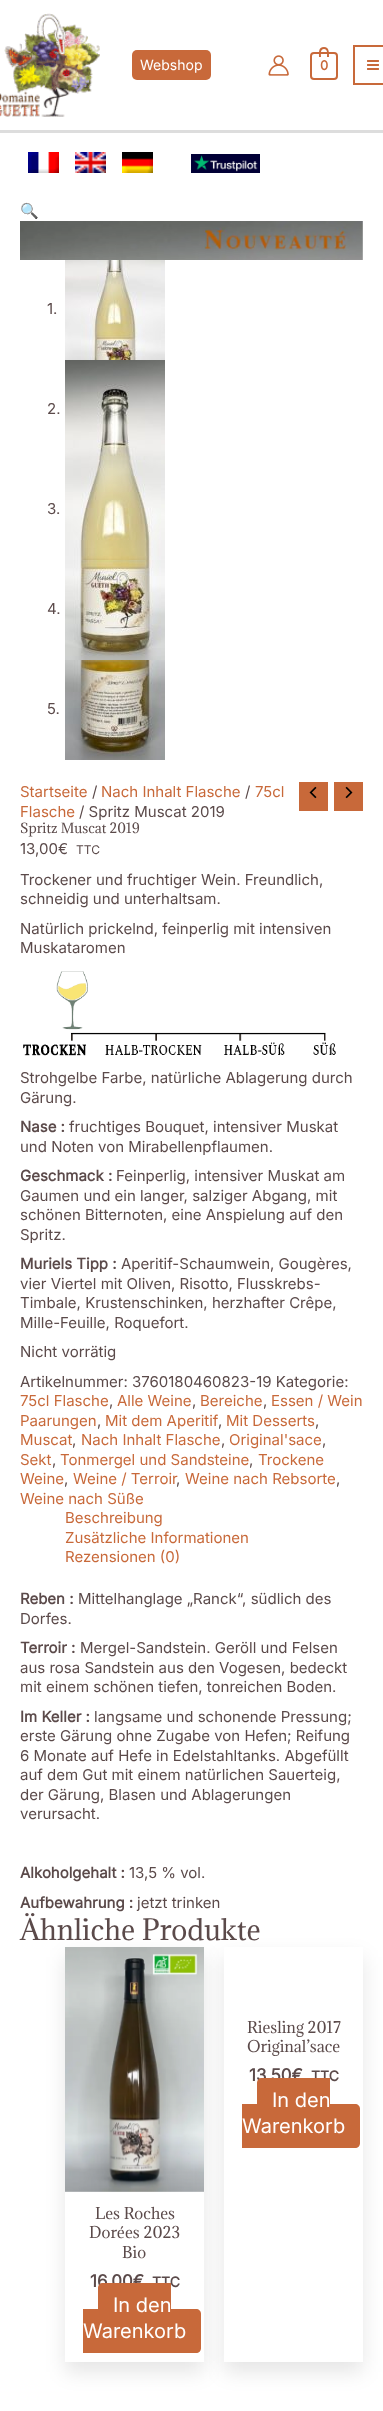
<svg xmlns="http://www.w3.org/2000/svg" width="383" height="2411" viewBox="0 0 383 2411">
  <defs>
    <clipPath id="clip1"><path d="M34 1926H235V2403H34ZM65 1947H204V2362H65Z" clip-rule="evenodd"/></clipPath>
    <clipPath id="clip2"><path d="M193 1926H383V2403H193ZM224 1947H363V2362H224Z" clip-rule="evenodd"/></clipPath>
  </defs>
  <rect width="100%" height="100%" fill="rgb(255,255,255)"/>
  <rect x="0" y="130" width="383" height="3" fill="rgb(221,221,221)"/>
  <image x="0" y="13" width="100" height="104" href="pic1.png"/>
  <rect x="132" y="50" width="79" height="30" rx="5" fill="rgb(200,105,58)"/>
  <text x="140" y="70" font-family="Inter" font-size="14" fill="rgb(255,255,255)">Webshop</text>
  <image x="268" y="55" width="21" height="21" href="pic2.png"/>
  <rect x="311" y="53" width="26" height="26" rx="3" fill="none" stroke="rgb(200,105,58)" stroke-width="2"/>
  <path d="M324 47C329.5 47 329 53 329 57H319C319 53 318 47 324 47ZM324 49C328 49 327 54.5 327 57H321C321 54.5 320 49 324 49Z" fill="rgb(200,105,58)" fill-rule="evenodd"/>
  <text x="320" y="70" font-family="Inter" font-size="13" font-weight="bold" fill="rgb(200,105,58)">0</text>
  <rect x="354" y="46" width="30" height="38" fill="none" stroke="rgb(200,105,58)" stroke-width="2"/>
  <image x="367" y="60" width="12" height="10" href="pic3.png"/>
  <image x="28" y="152" width="31" height="21" href="pic4.png"/>
  <image x="75" y="152" width="31" height="21" href="pic5.png"/>
  <image x="122" y="152" width="31" height="21" href="pic6.png"/>
  <image x="191" y="154" width="69" height="19" href="pic7.png"/>
  <text x="20" y="216" font-family="Noto Color Emoji" font-size="15" fill="rgb(200,105,58)">🔍</text>
  <image x="20" y="221" width="343" height="39" href="pic8.png"/>
  <text x="47" y="314" font-family="Inter" font-size="15" fill="rgb(91,74,74)">1.</text>
  <image x="65" y="260" width="100" height="100" href="pic9.png"/>
  <text x="47" y="414" font-family="Inter" font-size="15" fill="rgb(91,74,74)">2.</text>
  <image x="65" y="360" width="100" height="100" href="pic10.png"/>
  <text x="47" y="514" font-family="Inter" font-size="15" fill="rgb(91,74,74)">3.</text>
  <image x="65" y="460" width="100" height="100" href="pic11.png"/>
  <text x="47" y="614" font-family="Inter" font-size="15" fill="rgb(91,74,74)">4.</text>
  <image x="65" y="560" width="100" height="100" href="pic12.png"/>
  <text x="47" y="714" font-family="Inter" font-size="15" fill="rgb(91,74,74)">5.</text>
  <image x="65" y="660" width="100" height="100" href="pic13.png"/>
  <text x="20" y="797" font-family="Inter" font-size="15" fill="rgb(200,105,58)">Startseite</text>
  <text x="92" y="797" font-family="Inter" font-size="15" fill="rgb(91,74,74)">/</text>
  <text x="101" y="797" font-family="Inter" font-size="15" fill="rgb(200,105,58)">Nach Inhalt Flasche</text>
  <text x="245" y="797" font-family="Inter" font-size="15" fill="rgb(91,74,74)">/</text>
  <g font-family="Inter" font-size="15" fill="rgb(200,105,58)">
    <text x="255" y="797">75cl</text>
    <text x="20" y="817">Flasche</text>
  </g>
  <text x="79" y="817" font-family="Inter" font-size="15" fill="rgb(91,74,74)">/ Spritz Muscat 2019</text>
  <rect x="299" y="782" width="29" height="29" fill="rgb(200,105,58)"/>
  <image x="309" y="786" width="8" height="13" href="pic14.png"/>
  <rect x="334" y="782" width="29" height="29" fill="rgb(200,105,58)"/>
  <image x="345" y="786" width="8" height="13" href="pic15.png"/>
  <text x="20" y="833" font-family="Adamina" font-size="13" fill="rgb(91,74,74)">Spritz Muscat 2019</text>
  <text x="20" y="854" font-family="Inter" font-size="15" fill="rgb(91,74,74)">13,00€</text>
  <text x="76" y="854" font-family="Inter" font-size="12" fill="rgb(91,74,74)">TTC</text>
  <g font-family="Inter" font-size="15" fill="rgb(91,74,74)">
    <text>
      <tspan x="20" y="885">Trockener und fruchtiger Wein. Freundlich,</tspan>
      <tspan x="20" y="904">schneidig und unterhaltsam.</tspan>
    </text>
    <text>
      <tspan x="20" y="934">Natürlich prickelnd, feinperlig mit intensiven</tspan>
      <tspan x="20" y="953">Muskataromen</tspan>
    </text>
  </g>
  <image x="23" y="971" width="313" height="85" href="pic16.png"/>
  <g font-family="Inter" font-size="15" fill="rgb(91,74,74)">
    <text>
      <tspan x="20" y="1083">Strohgelbe Farbe, natürliche Ablagerung durch</tspan>
      <tspan x="20" y="1103">Gärung.</tspan>
    </text>
  </g>
  <text x="20" y="1132" font-family="Inter" font-size="15" font-weight="bold" fill="rgb(91,74,74)">Nase :</text>
  <g font-family="Inter" font-size="15" fill="rgb(91,74,74)">
    <text x="69" y="1132">fruchtiges Bouquet, intensiver Muskat</text>
    <text x="20" y="1152">und Noten von Mirabellenpflaumen.</text>
  </g>
  <text x="20" y="1181" font-family="Inter" font-size="15" font-weight="bold" fill="rgb(91,74,74)">Geschmack :</text>
  <g font-family="Inter" font-size="15" fill="rgb(91,74,74)">
    <text x="116" y="1181">Feinperlig, intensiver Muskat am</text>
    <text>
      <tspan x="20" y="1201">Gaumen und ein langer, salziger Abgang, mit</tspan>
      <tspan x="20" y="1220">schönen Bitternoten, eine Anspielung auf den</tspan>
      <tspan x="20" y="1240">Spritz.</tspan>
    </text>
  </g>
  <text x="20" y="1269" font-family="Inter" font-size="15" font-weight="bold" fill="rgb(91,74,74)">Muriels Tipp :</text>
  <g font-family="Inter" font-size="15" fill="rgb(91,74,74)">
    <text x="121" y="1269">Aperitif-Schaumwein, Gougères,</text>
    <text>
      <tspan x="20" y="1289">vier Viertel mit Oliven, Risotto, Flusskrebs-</tspan>
      <tspan x="20" y="1308">Timbale, Krustenschinken, herzhafter Crêpe,</tspan>
      <tspan x="20" y="1328">Mille-Feuille, Roquefort.</tspan>
      <tspan x="20" y="1357">Nicht vorrätig</tspan>
    </text>
    <text x="20" y="1387">Artikelnummer: 3760180460823-19 Kategorie:</text>
  </g>
  <text x="20" y="1406" font-family="Inter" font-size="15" fill="rgb(200,105,58)">75cl Flasche</text>
  <text x="109" y="1406" font-family="Inter" font-size="15" fill="rgb(91,74,74)">,</text>
  <text x="117" y="1406" font-family="Inter" font-size="15" fill="rgb(200,105,58)">Alle Weine</text>
  <text x="192" y="1406" font-family="Inter" font-size="15" fill="rgb(91,74,74)">,</text>
  <text x="200" y="1406" font-family="Inter" font-size="15" fill="rgb(200,105,58)">Bereiche</text>
  <text x="263" y="1406" font-family="Inter" font-size="15" fill="rgb(91,74,74)">,</text>
  <g font-family="Inter" font-size="15" fill="rgb(200,105,58)">
    <text x="271" y="1406">Essen / Wein</text>
    <text x="20" y="1426">Paarungen</text>
  </g>
  <text x="97" y="1426" font-family="Inter" font-size="15" fill="rgb(91,74,74)">,</text>
  <text x="105" y="1426" font-family="Inter" font-size="15" fill="rgb(200,105,58)">Mit dem Aperitif</text>
  <text x="218" y="1426" font-family="Inter" font-size="15" fill="rgb(91,74,74)">,</text>
  <text x="226" y="1426" font-family="Inter" font-size="15" fill="rgb(200,105,58)">Mit Desserts</text>
  <text x="315" y="1426" font-family="Inter" font-size="15" fill="rgb(91,74,74)">,</text>
  <text x="20" y="1445" font-family="Inter" font-size="15" fill="rgb(200,105,58)">Muscat</text>
  <text x="72" y="1445" font-family="Inter" font-size="15" fill="rgb(91,74,74)">,</text>
  <text x="81" y="1445" font-family="Inter" font-size="15" fill="rgb(200,105,58)">Nach Inhalt Flasche</text>
  <text x="221" y="1445" font-family="Inter" font-size="15" fill="rgb(91,74,74)">,</text>
  <text x="229" y="1445" font-family="Inter" font-size="15" fill="rgb(200,105,58)">Original'sace</text>
  <text x="322" y="1445" font-family="Inter" font-size="15" fill="rgb(91,74,74)">,</text>
  <text x="20" y="1465" font-family="Inter" font-size="15" fill="rgb(200,105,58)">Sekt</text>
  <text x="52" y="1465" font-family="Inter" font-size="15" fill="rgb(91,74,74)">,</text>
  <text x="60" y="1465" font-family="Inter" font-size="15" fill="rgb(200,105,58)">Tonmergel und Sandsteine</text>
  <text x="249" y="1465" font-family="Inter" font-size="15" fill="rgb(91,74,74)">,</text>
  <g font-family="Inter" font-size="15" fill="rgb(200,105,58)">
    <text x="258" y="1465">Trockene</text>
    <text x="20" y="1484">Weine</text>
  </g>
  <text x="64" y="1484" font-family="Inter" font-size="15" fill="rgb(91,74,74)">,</text>
  <text x="73" y="1484" font-family="Inter" font-size="15" fill="rgb(200,105,58)">Weine / Terroir</text>
  <text x="176" y="1484" font-family="Inter" font-size="15" fill="rgb(91,74,74)">,</text>
  <text x="185" y="1484" font-family="Inter" font-size="15" fill="rgb(200,105,58)">Weine nach Rebsorte</text>
  <text x="336" y="1484" font-family="Inter" font-size="15" fill="rgb(91,74,74)">,</text>
  <g font-family="Inter" font-size="15" fill="rgb(200,105,58)">
    <text x="20" y="1504">Weine nach Süße</text>
    <text>
      <tspan x="65" y="1523">Beschreibung</tspan>
      <tspan x="65" y="1543">Zusätzliche Informationen</tspan>
      <tspan x="65" y="1562">Rezensionen (0)</tspan>
    </text>
  </g>
  <text x="20" y="1604" font-family="Inter" font-size="15" font-weight="bold" fill="rgb(91,74,74)">Reben :</text>
  <g font-family="Inter" font-size="15" fill="rgb(91,74,74)">
    <text x="78" y="1604">Mittelhanglage „Ranck“, südlich des</text>
    <text x="20" y="1624">Dorfes.</text>
  </g>
  <text x="20" y="1653" font-family="Inter" font-size="15" font-weight="bold" fill="rgb(91,74,74)">Terroir :</text>
  <g font-family="Inter" font-size="15" fill="rgb(91,74,74)">
    <text x="80" y="1653">Mergel-Sandstein. Geröll und Felsen</text>
    <text>
      <tspan x="20" y="1673">aus rosa Sandstein aus den Vogesen, bedeckt</tspan>
      <tspan x="20" y="1692">mit einem schönen tiefen, tonreichen Boden.</tspan>
    </text>
  </g>
  <text x="20" y="1722" font-family="Inter" font-size="15" font-weight="bold" fill="rgb(91,74,74)">Im Keller :</text>
  <g font-family="Inter" font-size="15" fill="rgb(91,74,74)">
    <text x="94" y="1722">langsame und schonende Pressung;</text>
    <text>
      <tspan x="20" y="1741">erste Gärung ohne Zugabe von Hefen; Reifung</tspan>
      <tspan x="20" y="1761">6 Monate auf Hefe in Edelstahltanks. Abgefüllt</tspan>
      <tspan x="20" y="1780">auf dem Gut mit einem natürlichen Sauerteig,</tspan>
      <tspan x="20" y="1800">der Gärung, Blasen und Ablagerungen</tspan>
      <tspan x="20" y="1819">verursacht.</tspan>
    </text>
  </g>
  <text x="20" y="1878" font-family="Inter" font-size="15" font-weight="bold" fill="rgb(91,74,74)">Alkoholgehalt :</text>
  <text x="129" y="1878" font-family="Inter" font-size="15" fill="rgb(91,74,74)">13,5 % vol.</text>
  <text x="20" y="1908" font-family="Inter" font-size="15" font-weight="bold" fill="rgb(91,74,74)">Aufbewahrung :</text>
  <text x="137" y="1908" font-family="Inter" font-size="15" fill="rgb(91,74,74)">jetzt trinken</text>
  <text x="20" y="1940" font-family="Adamina" font-size="27" fill="rgb(91,74,74)">Ähnliche Produkte</text>
  <g clip-path="url(#clip1)">
    <rect x="65" y="1957" width="139" height="415" fill="rgba(0,0,0,0.1)" filter="blur(10px)"/>
  </g>
  <image x="65" y="1947" width="139" height="245" href="pic17.png"/>
  <text x="90" y="2287" font-family="Inter" font-size="17" font-weight="bold" fill="rgb(91,74,74)">16,00€</text>
  <text x="152" y="2287" font-family="Inter" font-size="14" font-weight="bold" fill="rgb(91,74,74)">TTC</text>
  <path d="M103 2283H171V2327H103C100 2327 98 2325 98 2322V2288C98 2285 100 2283 103 2283Z" fill="rgb(200,105,58)"/>
  <path d="M83 2309H196C199 2309 201 2311 201 2314V2348C201 2351 199 2353 196 2353H83Z" fill="rgb(200,105,58)"/>
  <g clip-path="url(#clip2)">
    <rect x="224" y="1957" width="139" height="415" fill="rgba(0,0,0,0.1)" filter="blur(10px)"/>
  </g>
  <g font-family="Adamina" font-size="15" fill="rgb(91,74,74)">
    <text>
      <tspan x="247" y="2033">Riesling 2017</tspan>
      <tspan x="247" y="2052">Original’sace</tspan>
    </text>
  </g>
  <text x="249" y="2081" font-family="Inter" font-size="17" font-weight="bold" fill="rgb(91,74,74)">13,50€</text>
  <text x="311" y="2081" font-family="Inter" font-size="14" font-weight="bold" fill="rgb(91,74,74)">TTC</text>
  <path d="M262 2078H330V2122H262C259 2122 257 2120 257 2117V2083C257 2080 259 2078 262 2078Z" fill="rgb(200,105,58)"/>
  <path d="M242 2104H355C358 2104 360 2106 360 2109V2143C360 2146 358 2148 355 2148H242Z" fill="rgb(200,105,58)"/>
  <g font-family="Inter" font-size="20" fill="rgb(255,255,255)">
    <text x="272" y="2107">In den</text>
    <text x="242" y="2133">Warenkorb</text>
  </g>
  <g font-family="Adamina" font-size="15" fill="rgb(91,74,74)">
    <text x="95" y="2219">Les Roches</text>
    <text x="89" y="2238">Dorées 2023</text>
    <text x="122" y="2258">Bio</text>
  </g>
  <g font-family="Inter" font-size="20" fill="rgb(255,255,255)">
    <text x="113" y="2312">In den</text>
    <text x="83" y="2338">Warenkorb</text>
  </g>
</svg>
